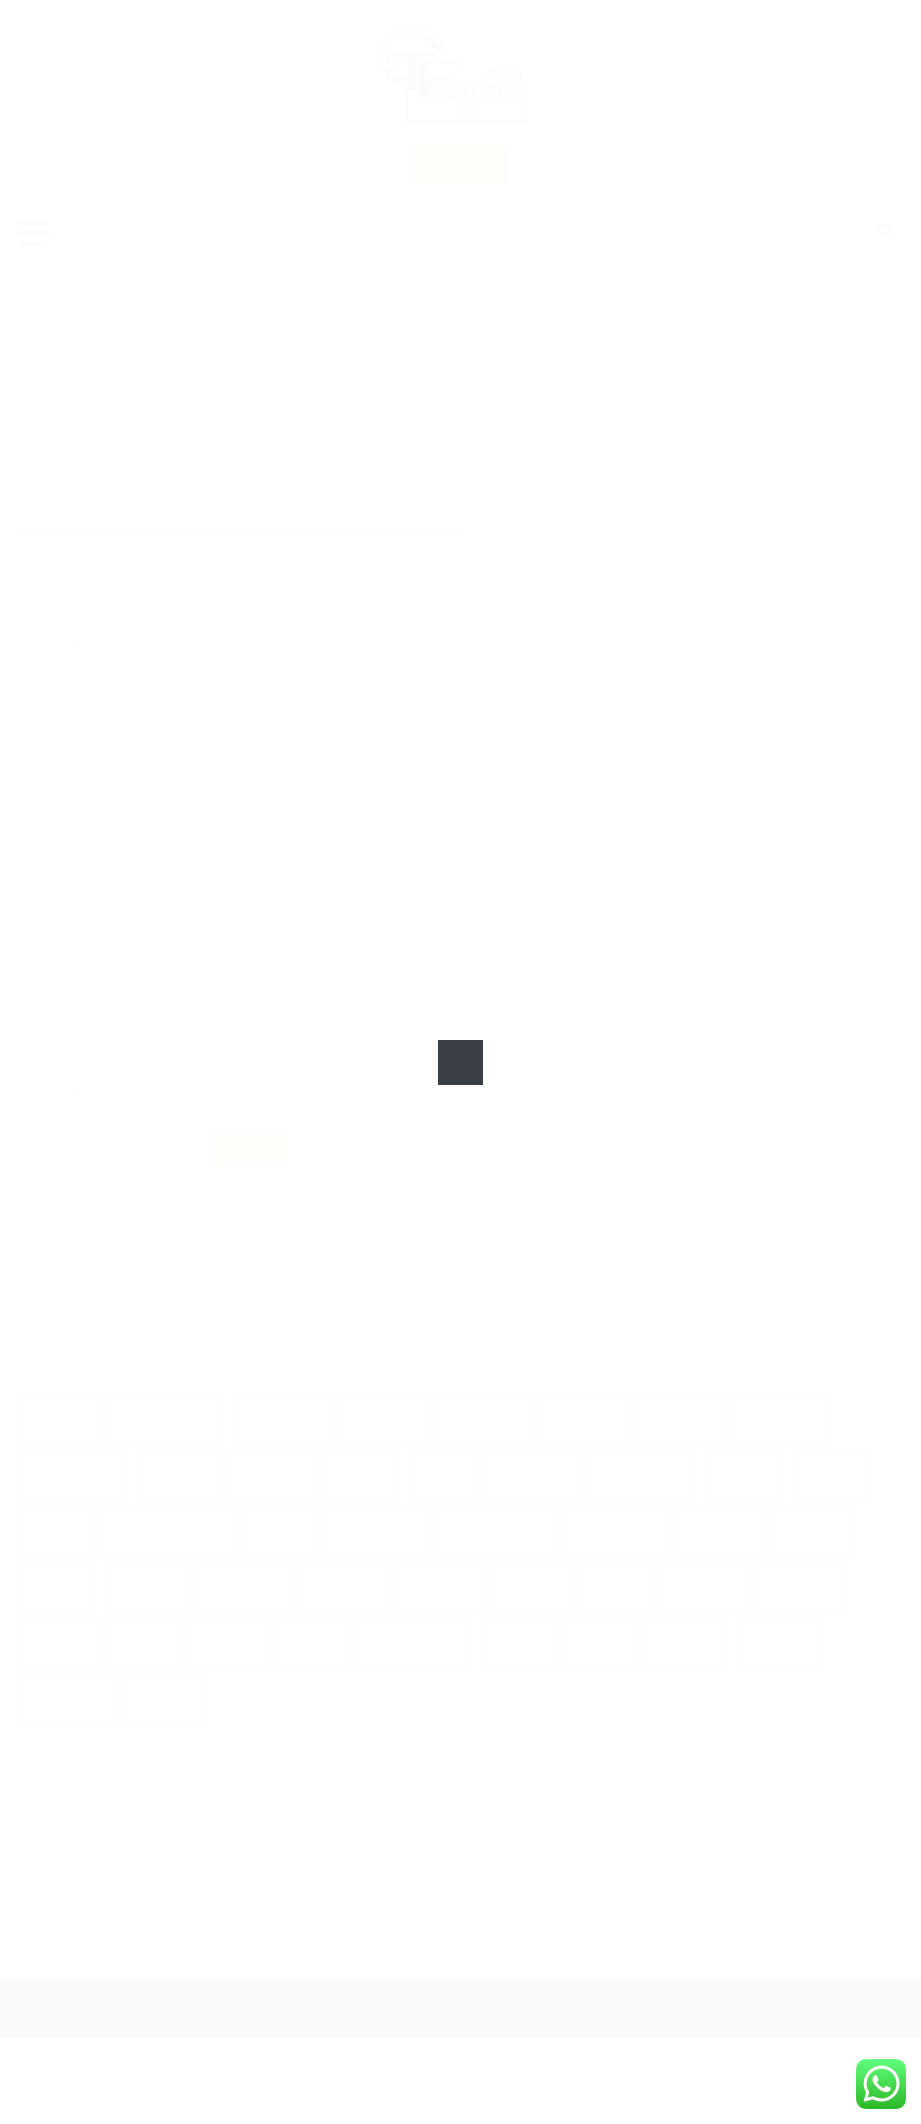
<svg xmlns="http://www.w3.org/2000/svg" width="921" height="2124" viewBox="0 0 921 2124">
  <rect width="100%" height="100%" fill="rgb(255,255,255)"/>
  <image x="378" y="26" width="150" height="96" href="pic1.png"/>
  <rect x="414" y="145" width="93" height="39" fill="rgb(255,252,250)"/>
  <rect x="20" y="221" width="26" height="4" fill="rgb(251,251,251)"/>
  <rect x="20" y="231" width="30" height="4" fill="rgb(251,251,251)"/>
  <rect x="20" y="241" width="26" height="4" fill="rgb(251,251,251)"/>
  <image x="878" y="223" width="16" height="16" href="pic2.png"/>
  <rect x="20" y="528" width="440" height="1" fill="rgb(251,252,254)"/>
  <rect x="77" y="640" width="2" height="2" fill="rgb(251,251,251)"/>
  <rect x="77" y="1091" width="2" height="2" fill="rgb(251,251,251)"/>
  <rect x="211" y="1134" width="75" height="32" fill="rgb(255,252,250)"/>
  <rect x="20.5" y="1394.5" width="76" height="50" fill="none" stroke="rgb(252,252,252)"/>
  <rect x="106.5" y="1394.5" width="116" height="50" fill="none" stroke="rgb(252,252,252)"/>
  <rect x="232.5" y="1394.5" width="100" height="50" fill="none" stroke="rgb(252,252,252)"/>
  <rect x="342.5" y="1394.5" width="87" height="50" fill="none" stroke="rgb(252,252,252)"/>
  <rect x="439.5" y="1394.5" width="93" height="50" fill="none" stroke="rgb(252,252,252)"/>
  <rect x="542.5" y="1394.5" width="86" height="50" fill="none" stroke="rgb(252,252,252)"/>
  <rect x="638.5" y="1394.5" width="83" height="50" fill="none" stroke="rgb(252,252,252)"/>
  <rect x="731.5" y="1394.5" width="97" height="50" fill="none" stroke="rgb(252,252,252)"/>
  <rect x="20.5" y="1450.5" width="107" height="50" fill="none" stroke="rgb(252,252,252)"/>
  <rect x="137.5" y="1450.5" width="79" height="50" fill="none" stroke="rgb(252,252,252)"/>
  <rect x="226.5" y="1450.5" width="88" height="50" fill="none" stroke="rgb(252,252,252)"/>
  <rect x="324.5" y="1450.5" width="75" height="50" fill="none" stroke="rgb(252,252,252)"/>
  <rect x="409.5" y="1450.5" width="64" height="50" fill="none" stroke="rgb(252,252,252)"/>
  <rect x="483.5" y="1450.5" width="95" height="50" fill="none" stroke="rgb(252,252,252)"/>
  <rect x="587.5" y="1450.5" width="107" height="50" fill="none" stroke="rgb(252,252,252)"/>
  <rect x="704.5" y="1450.5" width="79" height="50" fill="none" stroke="rgb(252,252,252)"/>
  <rect x="793.5" y="1450.5" width="78" height="50" fill="none" stroke="rgb(252,252,252)"/>
  <rect x="20.5" y="1506.5" width="73" height="50" fill="none" stroke="rgb(252,252,252)"/>
  <rect x="103.5" y="1506.5" width="131" height="50" fill="none" stroke="rgb(252,252,252)"/>
  <rect x="244.5" y="1506.5" width="69" height="50" fill="none" stroke="rgb(252,252,252)"/>
  <rect x="323.5" y="1506.5" width="105" height="50" fill="none" stroke="rgb(252,252,252)"/>
  <rect x="438.5" y="1506.5" width="119" height="50" fill="none" stroke="rgb(252,252,252)"/>
  <rect x="567.5" y="1506.5" width="98" height="50" fill="none" stroke="rgb(252,252,252)"/>
  <rect x="675.5" y="1506.5" width="85" height="50" fill="none" stroke="rgb(252,252,252)"/>
  <rect x="770.5" y="1506.5" width="85" height="50" fill="none" stroke="rgb(252,252,252)"/>
  <rect x="20.5" y="1562.5" width="75" height="50" fill="none" stroke="rgb(252,252,252)"/>
  <rect x="104.5" y="1562.5" width="83" height="50" fill="none" stroke="rgb(252,252,252)"/>
  <rect x="197.5" y="1562.5" width="92" height="50" fill="none" stroke="rgb(252,252,252)"/>
  <rect x="299.5" y="1562.5" width="85" height="50" fill="none" stroke="rgb(252,252,252)"/>
  <rect x="394.5" y="1562.5" width="86" height="50" fill="none" stroke="rgb(252,252,252)"/>
  <rect x="490.5" y="1562.5" width="78" height="50" fill="none" stroke="rgb(252,252,252)"/>
  <rect x="578.5" y="1562.5" width="75" height="50" fill="none" stroke="rgb(252,252,252)"/>
  <rect x="663.5" y="1562.5" width="83" height="50" fill="none" stroke="rgb(252,252,252)"/>
  <rect x="756.5" y="1562.5" width="85" height="50" fill="none" stroke="rgb(252,252,252)"/>
  <rect x="20.5" y="1618.5" width="78" height="50" fill="none" stroke="rgb(252,252,252)"/>
  <rect x="108.5" y="1618.5" width="71" height="50" fill="none" stroke="rgb(252,252,252)"/>
  <rect x="189.5" y="1618.5" width="79" height="50" fill="none" stroke="rgb(252,252,252)"/>
  <rect x="278.5" y="1618.5" width="68" height="50" fill="none" stroke="rgb(252,252,252)"/>
  <rect x="356.5" y="1618.5" width="115" height="50" fill="none" stroke="rgb(252,252,252)"/>
  <rect x="481.5" y="1618.5" width="73" height="50" fill="none" stroke="rgb(252,252,252)"/>
  <rect x="564.5" y="1618.5" width="72" height="50" fill="none" stroke="rgb(252,252,252)"/>
  <rect x="646.5" y="1618.5" width="80" height="50" fill="none" stroke="rgb(252,252,252)"/>
  <rect x="736.5" y="1618.5" width="87" height="50" fill="none" stroke="rgb(252,252,252)"/>
  <rect x="20.5" y="1674.5" width="96" height="50" fill="none" stroke="rgb(252,252,252)"/>
  <rect x="126.5" y="1674.5" width="75" height="50" fill="none" stroke="rgb(252,252,252)"/>
  <rect x="438" y="1040" width="45" height="45" fill="rgb(58,63,71)"/>
  <rect x="0" y="1978" width="921" height="61" fill="rgb(250,250,250)"/>
  <image x="856" y="2059" width="50" height="50" href="pic3.png"/>
</svg>
